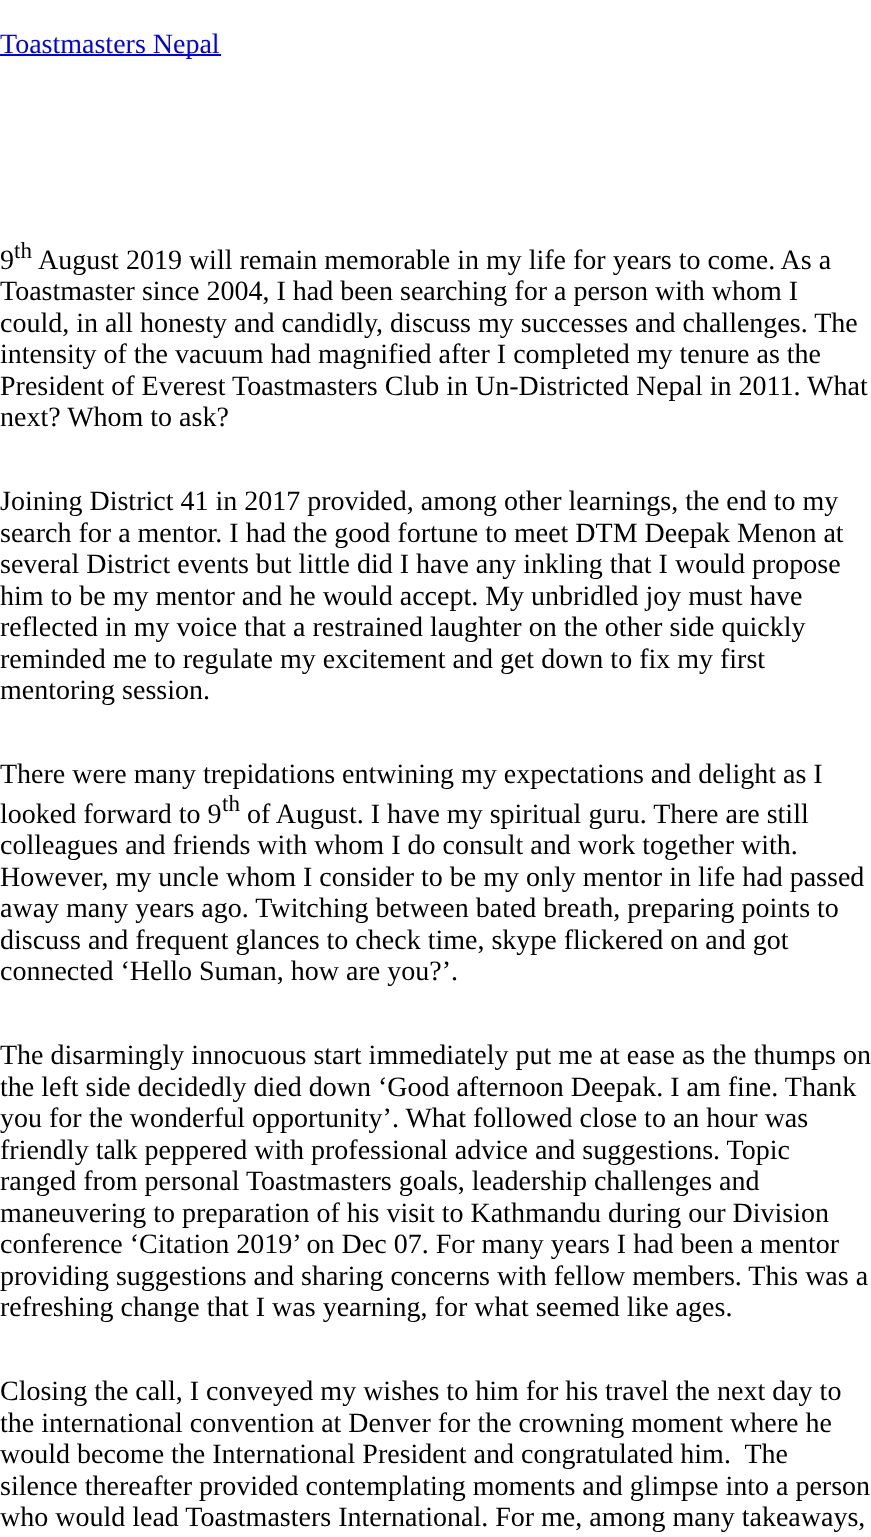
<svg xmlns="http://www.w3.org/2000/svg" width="871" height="1537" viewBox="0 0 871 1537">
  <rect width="100%" height="100%" fill="rgb(255,255,255)"/>
  <rect x="0" y="54" width="221" height="2" fill="rgb(0,0,238)"/>
  <text x="0" y="53" font-family="Liberation Serif" font-size="28" fill="rgb(0,0,238)">Toastmasters Nepal</text>
  <text x="0" y="269" font-family="Liberation Serif" font-size="28" fill="rgb(0,0,0)">9</text>
  <text x="14" y="258" font-family="Liberation Serif" font-size="23" fill="rgb(0,0,0)">th</text>
  <g font-family="Liberation Serif" font-size="28" fill="rgb(0,0,0)">
    <text x="38" y="269">August 2019 will remain memorable in my life for years to come. As a</text>
    <text>
      <tspan x="0" y="300">Toastmaster since 2004, I had been searching for a person with whom I</tspan>
      <tspan x="0" y="332">could, in all honesty and candidly, discuss my successes and challenges. The</tspan>
      <tspan x="0" y="363">intensity of the vacuum had magnified after I completed my tenure as the</tspan>
      <tspan x="0" y="395">President of Everest Toastmasters Club in Un-Districted Nepal in 2011. What</tspan>
      <tspan x="0" y="426">next? Whom to ask?</tspan>
    </text>
    <text>
      <tspan x="0" y="510">Joining District 41 in 2017 provided, among other learnings, the end to my</tspan>
      <tspan x="0" y="542">search for a mentor. I had the good fortune to meet DTM Deepak Menon at</tspan>
      <tspan x="0" y="573">several District events but little did I have any inkling that I would propose</tspan>
      <tspan x="0" y="605">him to be my mentor and he would accept. My unbridled joy must have</tspan>
      <tspan x="0" y="636">reflected in my voice that a restrained laughter on the other side quickly</tspan>
      <tspan x="0" y="668">reminded me to regulate my excitement and get down to fix my first</tspan>
      <tspan x="0" y="699">mentoring session.</tspan>
    </text>
    <text>
      <tspan x="0" y="783">There were many trepidations entwining my expectations and delight as I</tspan>
      <tspan x="0" y="823">looked forward to 9</tspan>
    </text>
  </g>
  <text x="222" y="811" font-family="Liberation Serif" font-size="23" fill="rgb(0,0,0)">th</text>
  <g font-family="Liberation Serif" font-size="28" fill="rgb(0,0,0)">
    <text x="247" y="823">of August. I have my spiritual guru. There are still</text>
    <text>
      <tspan x="0" y="854">colleagues and friends with whom I do consult and work together with.</tspan>
      <tspan x="0" y="886">However, my uncle whom I consider to be my only mentor in life had passed</tspan>
      <tspan x="0" y="917">away many years ago. Twitching between bated breath, preparing points to</tspan>
      <tspan x="0" y="949">discuss and frequent glances to check time, skype flickered on and got</tspan>
      <tspan x="0" y="980">connected ‘Hello Suman, how are you?’.</tspan>
    </text>
    <text>
      <tspan x="0" y="1064">The disarmingly innocuous start immediately put me at ease as the thumps on</tspan>
      <tspan x="0" y="1096">the left side decidedly died down ‘Good afternoon Deepak. I am fine. Thank</tspan>
      <tspan x="0" y="1127">you for the wonderful opportunity’. What followed close to an hour was</tspan>
      <tspan x="0" y="1159">friendly talk peppered with professional advice and suggestions. Topic</tspan>
      <tspan x="0" y="1190">ranged from personal Toastmasters goals, leadership challenges and</tspan>
      <tspan x="0" y="1222">maneuvering to preparation of his visit to Kathmandu during our Division</tspan>
      <tspan x="0" y="1253">conference ‘Citation 2019’ on Dec 07. For many years I had been a mentor</tspan>
      <tspan x="0" y="1285">providing suggestions and sharing concerns with fellow members. This was a</tspan>
      <tspan x="0" y="1316">refreshing change that I was yearning, for what seemed like ages.</tspan>
    </text>
    <text xml:space="preserve"><tspan x="0" y="1400">Closing the call, I conveyed my wishes to him for his travel the next day to</tspan><tspan x="0" y="1432">the international convention at Denver for the crowning moment where he</tspan><tspan x="0" y="1463">would become the International President and congratulated him.  The</tspan><tspan x="0" y="1495">silence thereafter provided contemplating moments and glimpse into a person</tspan><tspan x="0" y="1526">who would lead Toastmasters International. For me, among many takeaways,</tspan></text>
  </g>
</svg>
